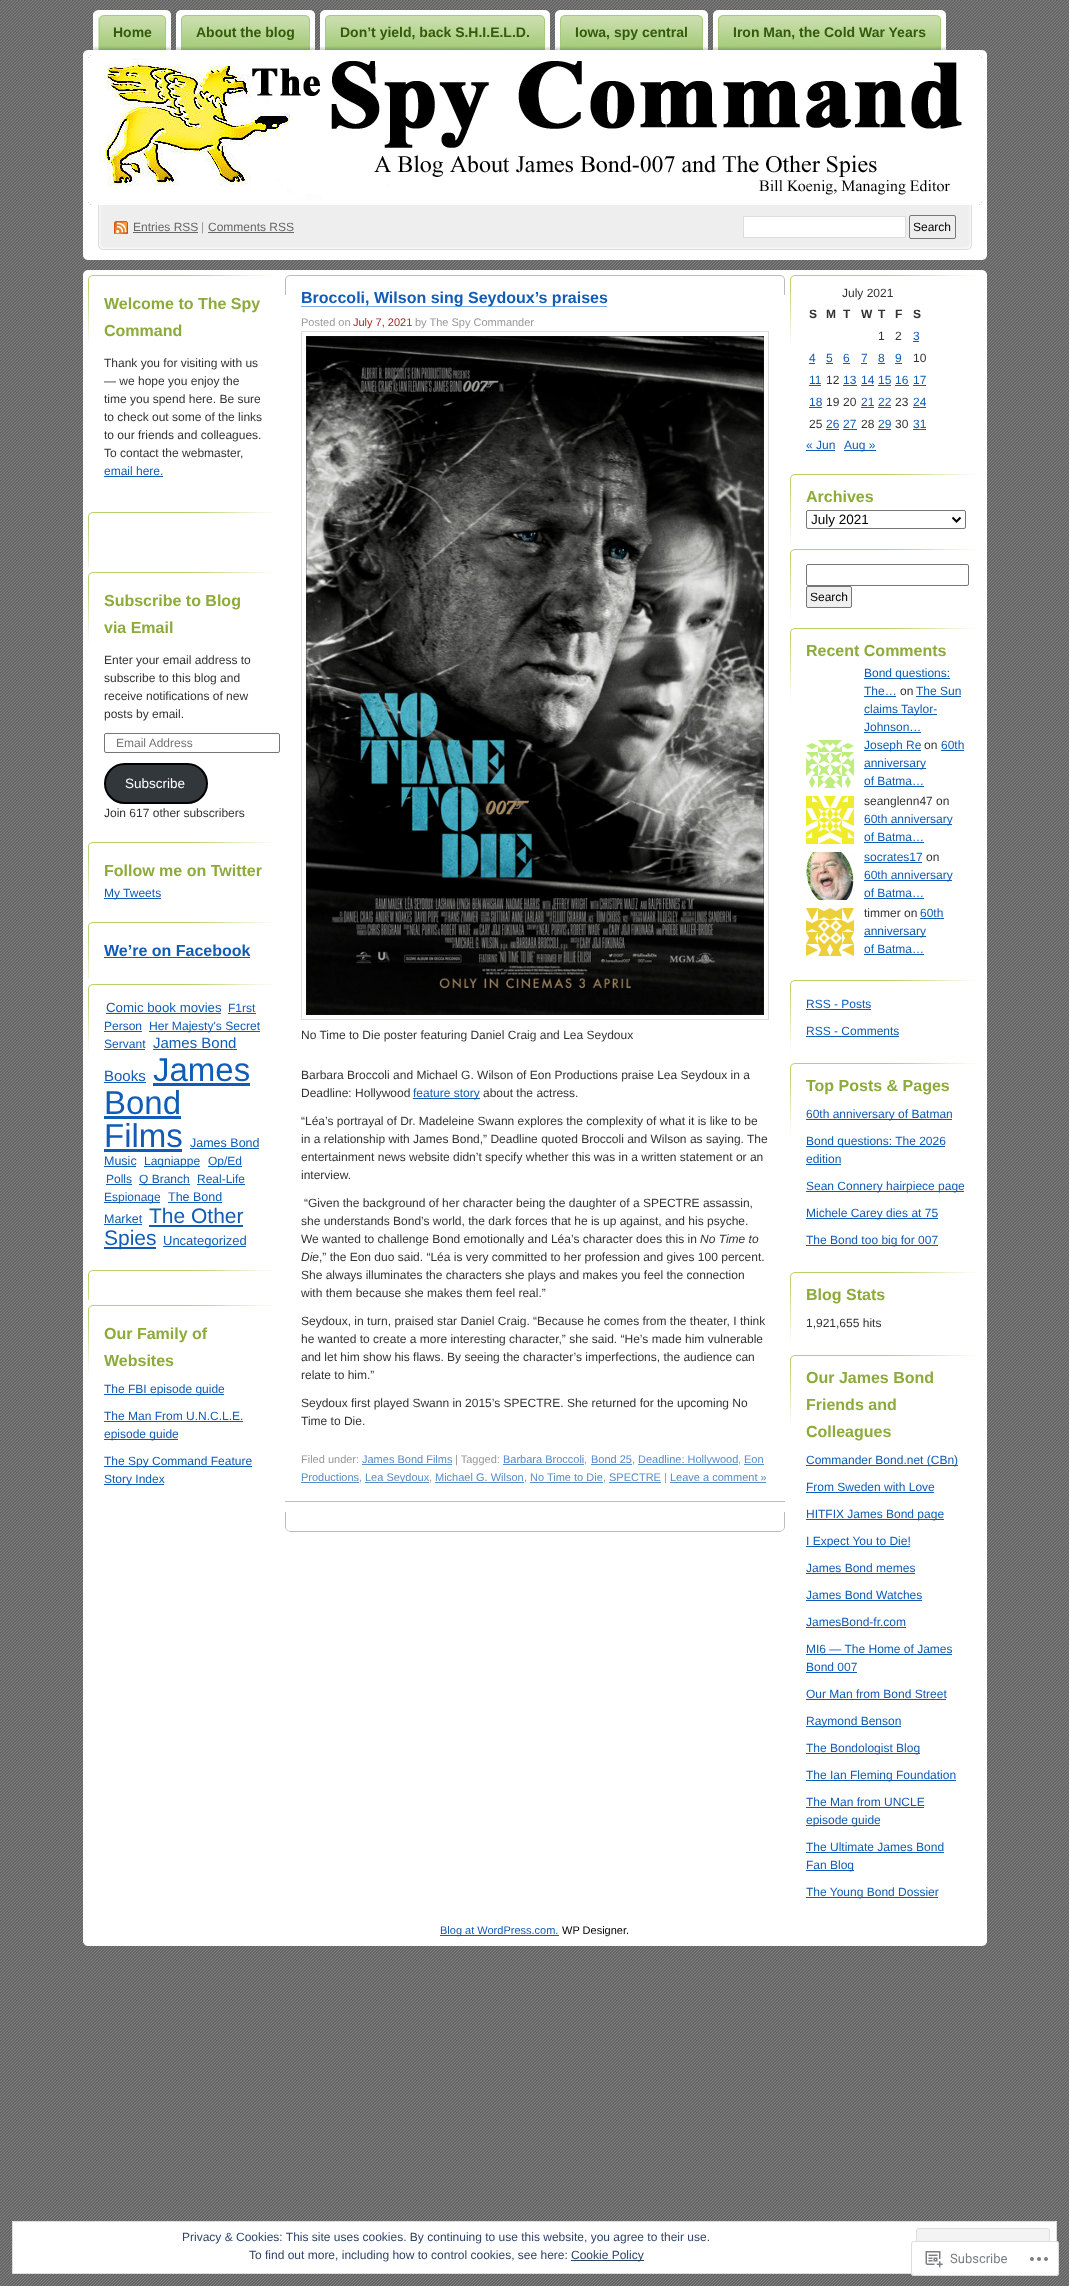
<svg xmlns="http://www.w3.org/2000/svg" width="1069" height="2286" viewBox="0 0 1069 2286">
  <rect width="100%" height="100%" fill="rgb(255,255,255)"/>
  <image x="0" y="0" width="1069" height="2286" href="pic1.png"/>
  <image x="104" y="10" width="67" height="40" href="pic2.png"/>
  <image x="93" y="10" width="11" height="40" href="pic3.png"/>
  <text x="113" y="37" font-family="Liberation Sans" font-size="14" font-weight="bold" fill="rgb(50,91,10)">Home</text>
  <image x="186" y="10" width="129" height="40" href="pic4.png"/>
  <image x="176" y="10" width="10" height="40" href="pic5.png"/>
  <text x="196" y="37" font-family="Liberation Sans" font-size="14" font-weight="bold" fill="rgb(50,91,10)">About the blog</text>
  <image x="330" y="10" width="220" height="40" href="pic6.png"/>
  <image x="320" y="10" width="10" height="40" href="pic5.png"/>
  <text x="340" y="37" font-family="Liberation Sans" font-size="14" font-weight="bold" fill="rgb(50,91,10)">Don’t yield, back S.H.I.E.L.D.</text>
  <image x="565" y="10" width="143" height="40" href="pic7.png"/>
  <image x="555" y="10" width="10" height="40" href="pic5.png"/>
  <text x="575" y="37" font-family="Liberation Sans" font-size="14" font-weight="bold" fill="rgb(50,91,10)">Iowa, spy central</text>
  <image x="723" y="10" width="223" height="40" href="pic8.png"/>
  <image x="713" y="10" width="10" height="40" href="pic5.png"/>
  <text x="733" y="37" font-family="Liberation Sans" font-size="14" font-weight="bold" fill="rgb(50,91,10)">Iron Man, the Cold War Years</text>
  <image x="88" y="55" width="894" height="150" href="pic10.png"/>
  <image x="83" y="50" width="904" height="210" href="pic9.png"/>
  <image x="114" y="221" width="14" height="13" href="pic11.png"/>
  <text x="133" y="231" font-family="Liberation Sans" font-size="12" fill="rgb(102,102,102)">Entries RSS</text>
  <rect x="133" y="232" width="65" height="1" fill="rgb(102,102,102)"/>
  <text x="201" y="231" font-family="Liberation Sans" font-size="12" fill="rgb(153,153,153)">|</text>
  <text x="208" y="231" font-family="Liberation Sans" font-size="12" fill="rgb(102,102,102)">Comments RSS</text>
  <rect x="208" y="232" width="86" height="1" fill="rgb(102,102,102)"/>
  <rect x="743.5" y="216.5" width="162" height="21" fill="rgb(255,255,255)" stroke="rgb(221,221,221)"/>
  <rect x="909.5" y="215.5" width="46" height="23" rx="1.5" fill="none" stroke="rgb(118,118,118)"/>
  <text x="913" y="231" font-family="Liberation Sans" font-size="12" fill="rgb(0,0,0)">Search</text>
  <rect x="83" y="275" width="904" height="1666" fill="rgb(255,255,255)"/>
  <image x="83" y="1941" width="904" height="5" href="pic12.png"/>
  <image x="83" y="270" width="904" height="5" href="pic13.png"/>
  <image x="88" y="275" width="188" height="72" href="pic14.png"/>
  <g font-family="Liberation Sans" font-size="16" font-weight="bold" fill="rgb(141,171,59)">
    <text>
      <tspan x="104" y="309">Welcome to The Spy</tspan>
      <tspan x="104" y="336">Command</tspan>
    </text>
  </g>
  <g font-family="Liberation Sans" font-size="12" fill="rgb(51,51,51)">
    <text>
      <tspan x="104" y="367">Thank you for visiting with us</tspan>
      <tspan x="104" y="385">— we hope you enjoy the</tspan>
      <tspan x="104" y="403">time you spend here. Be sure</tspan>
      <tspan x="104" y="421">to check out some of the links</tspan>
      <tspan x="104" y="439">to our friends and colleagues.</tspan>
      <tspan x="104" y="457">To contact the webmaster,</tspan>
    </text>
  </g>
  <text x="104" y="475" font-family="Liberation Sans" font-size="12" fill="rgb(16,92,182)">email here.</text>
  <rect x="104" y="476" width="59" height="1" fill="rgb(16,92,182)"/>
  <image x="88" y="512" width="188" height="55" href="pic15.png"/>
  <image x="88" y="572" width="188" height="72" href="pic14.png"/>
  <g font-family="Liberation Sans" font-size="16" font-weight="bold" fill="rgb(141,171,59)">
    <text>
      <tspan x="104" y="606">Subscribe to Blog</tspan>
      <tspan x="104" y="633">via Email</tspan>
    </text>
  </g>
  <g font-family="Liberation Sans" font-size="12" fill="rgb(51,51,51)">
    <text>
      <tspan x="104" y="664">Enter your email address to</tspan>
      <tspan x="104" y="682">subscribe to this blog and</tspan>
      <tspan x="104" y="700">receive notifications of new</tspan>
      <tspan x="104" y="718">posts by email.</tspan>
    </text>
  </g>
  <rect x="104.5" y="733.5" width="175" height="19" rx="1.5" fill="none" stroke="rgb(118,118,118)"/>
  <text x="116" y="747" font-family="Liberation Sans" font-size="12" fill="rgb(117,117,117)">Email Address</text>
  <rect x="105" y="764" width="102" height="39" rx="19.5" fill="rgb(50,55,60)" stroke="rgb(0,0,0)" stroke-width="2"/>
  <text x="125" y="788" font-family="Liberation Sans" font-size="13.5" fill="rgb(255,255,255)">Subscribe</text>
  <text x="104" y="817" font-family="Liberation Sans" font-size="12" fill="rgb(51,51,51)">Join 617 other subscribers</text>
  <image x="88" y="842" width="188" height="72" href="pic14.png"/>
  <text x="104" y="876" font-family="Liberation Sans" font-size="16" font-weight="bold" fill="rgb(141,171,59)">Follow me on Twitter</text>
  <rect x="104" y="898" width="57" height="1" fill="rgb(16,92,182)"/>
  <text x="104" y="897" font-family="Liberation Sans" font-size="12" fill="rgb(16,92,182)">My Tweets</text>
  <image x="88" y="922" width="188" height="57" href="pic16.png"/>
  <text x="104" y="956" font-family="Liberation Sans" font-size="16" font-weight="bold" fill="rgb(16,92,182)">We’re on Facebook</text>
  <rect x="104" y="957" width="146" height="1" fill="rgb(16,92,182)"/>
  <image x="88" y="984" width="188" height="72" href="pic14.png"/>
  <text x="106" y="1012" font-family="Liberation Sans" font-size="13.25" fill="rgb(16,92,182)">Comic book movies</text>
  <rect x="106" y="1013" width="115" height="1" fill="rgb(16,92,182)"/>
  <text x="228" y="1012" font-family="Liberation Sans" font-size="12" fill="rgb(16,92,182)">F1rst</text>
  <rect x="228" y="1013" width="28" height="1" fill="rgb(16,92,182)"/>
  <text x="104" y="1030" font-family="Liberation Sans" font-size="12" fill="rgb(16,92,182)">Person</text>
  <rect x="104" y="1031" width="38" height="1" fill="rgb(16,92,182)"/>
  <rect x="149" y="1031" width="111" height="1" fill="rgb(16,92,182)"/>
  <g font-family="Liberation Sans" font-size="12.1" fill="rgb(16,92,182)">
    <text x="149" y="1030">Her Majesty's Secret</text>
    <text x="104" y="1048">Servant</text>
  </g>
  <rect x="104" y="1049" width="41" height="1" fill="rgb(16,92,182)"/>
  <text x="153" y="1048" font-family="Liberation Sans" font-size="15" fill="rgb(16,92,182)">James Bond</text>
  <rect x="153" y="1049" width="84" height="1" fill="rgb(16,92,182)"/>
  <text x="104" y="1081" font-family="Liberation Sans" font-size="15" fill="rgb(16,92,182)">Books</text>
  <rect x="104" y="1082" width="42" height="1" fill="rgb(16,92,182)"/>
  <text x="153" y="1081" font-family="Liberation Sans" font-size="33" fill="rgb(16,92,182)">James</text>
  <rect x="153" y="1083" width="97" height="3" fill="rgb(16,92,182)"/>
  <text x="104" y="1114" font-family="Liberation Sans" font-size="33" fill="rgb(16,92,182)">Bond</text>
  <rect x="104" y="1116" width="77" height="3" fill="rgb(16,92,182)"/>
  <text x="104" y="1147" font-family="Liberation Sans" font-size="33" fill="rgb(16,92,182)">Films</text>
  <rect x="104" y="1149" width="78" height="3" fill="rgb(16,92,182)"/>
  <text x="190" y="1147" font-family="Liberation Sans" font-size="12.5" fill="rgb(16,92,182)">James Bond</text>
  <rect x="190" y="1148" width="69" height="1" fill="rgb(16,92,182)"/>
  <text x="104" y="1165" font-family="Liberation Sans" font-size="12.5" fill="rgb(16,92,182)">Music</text>
  <rect x="104" y="1166" width="32" height="1" fill="rgb(16,92,182)"/>
  <rect x="144" y="1166" width="56" height="1" fill="rgb(16,92,182)"/>
  <text x="144" y="1165" font-family="Liberation Sans" font-size="12" fill="rgb(16,92,182)">Lagniappe</text>
  <rect x="208" y="1166" width="34" height="1" fill="rgb(16,92,182)"/>
  <g font-family="Liberation Sans" font-size="12" fill="rgb(16,92,182)">
    <text x="208" y="1165">Op/Ed</text>
    <text x="106" y="1183">Polls</text>
  </g>
  <rect x="106" y="1184" width="26" height="1" fill="rgb(16,92,182)"/>
  <rect x="139" y="1184" width="51" height="1" fill="rgb(16,92,182)"/>
  <g font-family="Liberation Sans" font-size="12" fill="rgb(16,92,182)">
    <text x="139" y="1183">Q Branch</text>
    <text x="197" y="1183">Real-Life</text>
  </g>
  <rect x="197" y="1184" width="48" height="1" fill="rgb(16,92,182)"/>
  <rect x="104" y="1202" width="56" height="1" fill="rgb(16,92,182)"/>
  <text x="104" y="1201" font-family="Liberation Sans" font-size="12" fill="rgb(16,92,182)">Espionage</text>
  <text x="168" y="1201" font-family="Liberation Sans" font-size="12.5" fill="rgb(16,92,182)">The Bond</text>
  <rect x="168" y="1202" width="54" height="1" fill="rgb(16,92,182)"/>
  <text x="104" y="1223" font-family="Liberation Sans" font-size="12.5" fill="rgb(16,92,182)">Market</text>
  <rect x="104" y="1224" width="38" height="1" fill="rgb(16,92,182)"/>
  <text x="149" y="1223" font-family="Liberation Sans" font-size="21" fill="rgb(16,92,182)">The Other</text>
  <rect x="149" y="1225" width="94" height="2" fill="rgb(16,92,182)"/>
  <rect x="104" y="1247" width="52" height="2" fill="rgb(16,92,182)"/>
  <text x="104" y="1245" font-family="Liberation Sans" font-size="21" fill="rgb(16,92,182)">Spies</text>
  <rect x="163" y="1246" width="83" height="1" fill="rgb(16,92,182)"/>
  <text x="163" y="1245" font-family="Liberation Sans" font-size="13" fill="rgb(16,92,182)">Uncategorized</text>
  <image x="88" y="1270" width="188" height="30" href="pic17.png"/>
  <image x="88" y="1305" width="188" height="72" href="pic14.png"/>
  <g font-family="Liberation Sans" font-size="16" font-weight="bold" fill="rgb(141,171,59)">
    <text>
      <tspan x="104" y="1339">Our Family of</tspan>
      <tspan x="104" y="1366">Websites</tspan>
    </text>
  </g>
  <rect x="104" y="1394" width="120" height="1" fill="rgb(16,92,182)"/>
  <g font-family="Liberation Sans" font-size="12" fill="rgb(16,92,182)">
    <text x="104" y="1393">The FBI episode guide</text>
    <text x="104" y="1420">The Man From U.N.C.L.E.</text>
  </g>
  <rect x="104" y="1421" width="139" height="1" fill="rgb(16,92,182)"/>
  <rect x="104" y="1439" width="74" height="1" fill="rgb(16,92,182)"/>
  <text x="104" y="1438" font-family="Liberation Sans" font-size="12" fill="rgb(16,92,182)">episode guide</text>
  <rect x="104" y="1466" width="148" height="1" fill="rgb(16,92,182)"/>
  <text x="104" y="1465" font-family="Liberation Sans" font-size="12" fill="rgb(16,92,182)">The Spy Command Feature</text>
  <rect x="104" y="1484" width="60" height="1" fill="rgb(16,92,182)"/>
  <text x="104" y="1483" font-family="Liberation Sans" font-size="12" fill="rgb(16,92,182)">Story Index</text>
  <image x="285" y="1512" width="500" height="20" href="pic18.png"/>
  <image x="285" y="275" width="500" height="20" href="pic19.png"/>
  <rect x="301" y="306" width="306" height="1" fill="rgb(117,171,234)"/>
  <text x="301" y="303" font-family="Liberation Sans" font-size="16" font-weight="bold" fill="rgb(16,92,182)">Broccoli, Wilson sing Seydoux’s praises</text>
  <text x="301" y="326" font-family="Liberation Sans" font-size="11" fill="rgb(153,153,153)">Posted on</text>
  <text x="353" y="326" font-family="Liberation Sans" font-size="11" fill="rgb(161,42,42)">July 7, 2021</text>
  <text x="415" y="326" font-family="Liberation Sans" font-size="11" fill="rgb(153,153,153)">by The Spy Commander</text>
  <rect x="301.5" y="331.5" width="467" height="688" fill="none" stroke="rgb(221,221,221)"/>
  <image x="306" y="336" width="458" height="679" href="pic20.png"/>
  <g font-family="Liberation Sans" font-size="12" fill="rgb(51,51,51)">
    <text x="301" y="1039">No Time to Die poster featuring Daniel Craig and Lea Seydoux</text>
    <text>
      <tspan x="301" y="1079">Barbara Broccoli and Michael G. Wilson of Eon Productions praise Lea Seydoux in a</tspan>
      <tspan x="301" y="1097">Deadline: Hollywood</tspan>
    </text>
  </g>
  <rect x="413" y="1098" width="67" height="1" fill="rgb(16,92,182)"/>
  <text x="413" y="1097" font-family="Liberation Sans" font-size="12" fill="rgb(16,92,182)">feature story</text>
  <g font-family="Liberation Sans" font-size="12" fill="rgb(51,51,51)">
    <text x="483" y="1097">about the actress.</text>
    <text>
      <tspan x="301" y="1125">“Léa’s portrayal of Dr. Madeleine Swann explores the complexity of what it is like to be</tspan>
      <tspan x="301" y="1143">in a relationship with James Bond,” Deadline quoted Broccoli and Wilson as saying. The</tspan>
      <tspan x="301" y="1161">entertainment news website didn’t specify whether this was in a written statement or an</tspan>
      <tspan x="301" y="1179">interview.</tspan>
    </text>
    <text x="304" y="1207">“Given the background of her character being the daughter of a SPECTRE assassin,</text>
    <text>
      <tspan x="301" y="1225">she understands Bond’s world, the dark forces that he is up against, and his psyche.</tspan>
      <tspan x="301" y="1243">We wanted to challenge Bond emotionally and Léa’s character does this in</tspan>
    </text>
  </g>
  <g font-family="Liberation Sans" font-size="12" font-style="italic" fill="rgb(51,51,51)">
    <text x="700" y="1243">No Time to</text>
    <text x="301" y="1261">Die</text>
  </g>
  <g font-family="Liberation Sans" font-size="12" fill="rgb(51,51,51)">
    <text x="319" y="1261">,” the Eon duo said. “Léa is very committed to her profession and gives 100 percent.</text>
    <text>
      <tspan x="301" y="1279">She always illuminates the characters she plays and makes you feel the connection</tspan>
      <tspan x="301" y="1297">with them because she makes them feel real.”</tspan>
    </text>
    <text>
      <tspan x="301" y="1325">Seydoux, in turn, praised star Daniel Craig. “Because he comes from the theater, I think</tspan>
      <tspan x="301" y="1343">he wanted to create a more interesting character,” she said. “He’s made him vulnerable</tspan>
      <tspan x="301" y="1361">and let him show his flaws. By seeing the character’s imperfections, the audience can</tspan>
      <tspan x="301" y="1379">relate to him.”</tspan>
    </text>
    <text>
      <tspan x="301" y="1407">Seydoux first played Swann in 2015’s SPECTRE. She returned for the upcoming No</tspan>
      <tspan x="301" y="1425">Time to Die.</tspan>
    </text>
  </g>
  <text x="301" y="1463" font-family="Liberation Sans" font-size="11" fill="rgb(153,153,153)">Filed under:</text>
  <text x="362" y="1463" font-family="Liberation Sans" font-size="11" fill="rgb(87,140,202)">James Bond Films</text>
  <rect x="362" y="1464" width="90" height="1" fill="rgb(87,140,202)"/>
  <text x="455" y="1463" font-family="Liberation Sans" font-size="11" fill="rgb(153,153,153)">| Tagged:</text>
  <text x="503" y="1463" font-family="Liberation Sans" font-size="11" fill="rgb(87,140,202)">Barbara Broccoli</text>
  <rect x="503" y="1464" width="81" height="1" fill="rgb(87,140,202)"/>
  <text x="584" y="1463" font-family="Liberation Sans" font-size="11" fill="rgb(153,153,153)">,</text>
  <text x="591" y="1463" font-family="Liberation Sans" font-size="11" fill="rgb(87,140,202)">Bond 25</text>
  <rect x="591" y="1464" width="41" height="1" fill="rgb(87,140,202)"/>
  <text x="632" y="1463" font-family="Liberation Sans" font-size="11" fill="rgb(153,153,153)">,</text>
  <rect x="638" y="1464" width="100" height="1" fill="rgb(87,140,202)"/>
  <text x="638" y="1463" font-family="Liberation Sans" font-size="11" fill="rgb(87,140,202)">Deadline: Hollywood</text>
  <text x="738" y="1463" font-family="Liberation Sans" font-size="11" fill="rgb(153,153,153)">,</text>
  <text x="744" y="1463" font-family="Liberation Sans" font-size="11" fill="rgb(87,140,202)">Eon</text>
  <rect x="744" y="1464" width="20" height="1" fill="rgb(87,140,202)"/>
  <text x="301" y="1481" font-family="Liberation Sans" font-size="11" fill="rgb(87,140,202)">Productions</text>
  <rect x="301" y="1482" width="58" height="1" fill="rgb(87,140,202)"/>
  <text x="359" y="1481" font-family="Liberation Sans" font-size="11" fill="rgb(153,153,153)">,</text>
  <rect x="365" y="1482" width="64" height="1" fill="rgb(87,140,202)"/>
  <text x="365" y="1481" font-family="Liberation Sans" font-size="11" fill="rgb(87,140,202)">Lea Seydoux</text>
  <text x="429" y="1481" font-family="Liberation Sans" font-size="11" fill="rgb(153,153,153)">,</text>
  <text x="435" y="1481" font-family="Liberation Sans" font-size="11" fill="rgb(87,140,202)">Michael G. Wilson</text>
  <rect x="435" y="1482" width="89" height="1" fill="rgb(87,140,202)"/>
  <text x="524" y="1481" font-family="Liberation Sans" font-size="11" fill="rgb(153,153,153)">,</text>
  <text x="530" y="1481" font-family="Liberation Sans" font-size="11" fill="rgb(87,140,202)">No Time to Die</text>
  <rect x="530" y="1482" width="73" height="1" fill="rgb(87,140,202)"/>
  <text x="603" y="1481" font-family="Liberation Sans" font-size="11" fill="rgb(153,153,153)">,</text>
  <text x="609" y="1481" font-family="Liberation Sans" font-size="11" fill="rgb(87,140,202)">SPECTRE</text>
  <rect x="609" y="1482" width="52" height="1" fill="rgb(87,140,202)"/>
  <text x="664" y="1481" font-family="Liberation Sans" font-size="11" fill="rgb(153,153,153)">|</text>
  <text x="670" y="1481" font-family="Liberation Sans" font-size="11" fill="rgb(87,140,202)">Leave a comment »</text>
  <rect x="670" y="1482" width="96" height="1" fill="rgb(87,140,202)"/>
  <rect x="285" y="1501" width="500" height="1" fill="rgb(189,189,189)"/>
  <image x="790" y="275" width="188" height="72" href="pic14.png"/>
  <text x="842" y="297" font-family="Liberation Sans" font-size="12" fill="rgb(51,51,51)">July 2021</text>
  <g font-family="Liberation Sans" font-size="12" font-weight="bold" fill="rgb(51,51,51)">
    <text x="809" y="318">S</text>
    <text x="826" y="318">M</text>
    <text x="843" y="318">T</text>
    <text x="861" y="318">W</text>
    <text x="878" y="318">T</text>
    <text x="895" y="318">F</text>
    <text x="913" y="318">S</text>
  </g>
  <g font-family="Liberation Sans" font-size="12" fill="rgb(51,51,51)">
    <text x="878" y="340">1</text>
    <text x="895" y="340">2</text>
  </g>
  <text x="913" y="340" font-family="Liberation Sans" font-size="12" fill="rgb(16,92,182)">3</text>
  <rect x="913" y="341" width="6" height="1" fill="rgb(16,92,182)"/>
  <text x="809" y="362" font-family="Liberation Sans" font-size="12" fill="rgb(16,92,182)">4</text>
  <rect x="809" y="363" width="6" height="1" fill="rgb(16,92,182)"/>
  <text x="826" y="362" font-family="Liberation Sans" font-size="12" fill="rgb(16,92,182)">5</text>
  <rect x="826" y="363" width="7" height="1" fill="rgb(16,92,182)"/>
  <text x="843" y="362" font-family="Liberation Sans" font-size="12" fill="rgb(16,92,182)">6</text>
  <rect x="843" y="363" width="7" height="1" fill="rgb(16,92,182)"/>
  <text x="861" y="362" font-family="Liberation Sans" font-size="12" fill="rgb(16,92,182)">7</text>
  <rect x="861" y="363" width="6" height="1" fill="rgb(16,92,182)"/>
  <text x="878" y="362" font-family="Liberation Sans" font-size="12" fill="rgb(16,92,182)">8</text>
  <rect x="878" y="363" width="7" height="1" fill="rgb(16,92,182)"/>
  <text x="895" y="362" font-family="Liberation Sans" font-size="12" fill="rgb(16,92,182)">9</text>
  <rect x="895" y="363" width="7" height="1" fill="rgb(16,92,182)"/>
  <text x="913" y="362" font-family="Liberation Sans" font-size="12" fill="rgb(51,51,51)">10</text>
  <text x="809" y="384" font-family="Liberation Sans" font-size="12" fill="rgb(16,92,182)">11</text>
  <rect x="809" y="385" width="12" height="1" fill="rgb(16,92,182)"/>
  <text x="826" y="384" font-family="Liberation Sans" font-size="12" fill="rgb(51,51,51)">12</text>
  <text x="843" y="384" font-family="Liberation Sans" font-size="12" fill="rgb(16,92,182)">13</text>
  <rect x="843" y="385" width="14" height="1" fill="rgb(16,92,182)"/>
  <text x="861" y="384" font-family="Liberation Sans" font-size="12" fill="rgb(16,92,182)">14</text>
  <rect x="861" y="385" width="13" height="1" fill="rgb(16,92,182)"/>
  <text x="878" y="384" font-family="Liberation Sans" font-size="12" fill="rgb(16,92,182)">15</text>
  <rect x="878" y="385" width="13" height="1" fill="rgb(16,92,182)"/>
  <text x="895" y="384" font-family="Liberation Sans" font-size="12" fill="rgb(16,92,182)">16</text>
  <rect x="895" y="385" width="14" height="1" fill="rgb(16,92,182)"/>
  <text x="913" y="384" font-family="Liberation Sans" font-size="12" fill="rgb(16,92,182)">17</text>
  <rect x="913" y="385" width="13" height="1" fill="rgb(16,92,182)"/>
  <text x="809" y="406" font-family="Liberation Sans" font-size="12" fill="rgb(16,92,182)">18</text>
  <rect x="809" y="407" width="13" height="1" fill="rgb(16,92,182)"/>
  <g font-family="Liberation Sans" font-size="12" fill="rgb(51,51,51)">
    <text x="826" y="406">19</text>
    <text x="843" y="406">20</text>
  </g>
  <text x="861" y="406" font-family="Liberation Sans" font-size="12" fill="rgb(16,92,182)">21</text>
  <rect x="861" y="407" width="13" height="1" fill="rgb(16,92,182)"/>
  <text x="878" y="406" font-family="Liberation Sans" font-size="12" fill="rgb(16,92,182)">22</text>
  <rect x="878" y="407" width="13" height="1" fill="rgb(16,92,182)"/>
  <text x="895" y="406" font-family="Liberation Sans" font-size="12" fill="rgb(51,51,51)">23</text>
  <text x="913" y="406" font-family="Liberation Sans" font-size="12" fill="rgb(16,92,182)">24</text>
  <rect x="913" y="407" width="13" height="1" fill="rgb(16,92,182)"/>
  <text x="809" y="428" font-family="Liberation Sans" font-size="12" fill="rgb(51,51,51)">25</text>
  <text x="826" y="428" font-family="Liberation Sans" font-size="12" fill="rgb(16,92,182)">26</text>
  <rect x="826" y="429" width="13" height="1" fill="rgb(16,92,182)"/>
  <text x="843" y="428" font-family="Liberation Sans" font-size="12" fill="rgb(16,92,182)">27</text>
  <rect x="843" y="429" width="14" height="1" fill="rgb(16,92,182)"/>
  <text x="861" y="428" font-family="Liberation Sans" font-size="12" fill="rgb(51,51,51)">28</text>
  <text x="878" y="428" font-family="Liberation Sans" font-size="12" fill="rgb(16,92,182)">29</text>
  <rect x="878" y="429" width="13" height="1" fill="rgb(16,92,182)"/>
  <text x="895" y="428" font-family="Liberation Sans" font-size="12" fill="rgb(51,51,51)">30</text>
  <text x="913" y="428" font-family="Liberation Sans" font-size="12" fill="rgb(16,92,182)">31</text>
  <rect x="913" y="429" width="13" height="1" fill="rgb(16,92,182)"/>
  <text x="806" y="449" font-family="Liberation Sans" font-size="12" fill="rgb(16,92,182)">« Jun</text>
  <rect x="806" y="450" width="29" height="1" fill="rgb(16,92,182)"/>
  <rect x="844" y="450" width="32" height="1" fill="rgb(16,92,182)"/>
  <text x="844" y="449" font-family="Liberation Sans" font-size="12" fill="rgb(16,92,182)">Aug »</text>
  <image x="790" y="474" width="188" height="70" href="pic21.png"/>
  <text x="806" y="502" font-family="Liberation Sans" font-size="16" font-weight="bold" fill="rgb(141,171,59)">Archives</text>
  <rect x="806.5" y="510.5" width="159" height="18" rx="1.5" fill="none" stroke="rgb(118,118,118)"/>
  <path d="M952.5 517.5L956.5 521.5L960.5 517.5" fill="none" stroke="rgb(0,0,0)" stroke-width="2"/>
  <text x="811" y="524" font-family="Liberation Sans" font-size="13.5" fill="rgb(0,0,0)">July 2021</text>
  <image x="790" y="549" width="188" height="72" href="pic14.png"/>
  <rect x="806.5" y="564.5" width="162" height="21" rx="1.5" fill="none" stroke="rgb(118,118,118)"/>
  <rect x="806.5" y="586.5" width="45" height="21" rx="1.5" fill="rgb(239,239,239)" stroke="rgb(118,118,118)"/>
  <text x="810" y="601" font-family="Liberation Sans" font-size="12" fill="rgb(0,0,0)">Search</text>
  <image x="790" y="628" width="188" height="72" href="pic14.png"/>
  <text x="806" y="656" font-family="Liberation Sans" font-size="16" font-weight="bold" fill="rgb(141,171,59)">Recent Comments</text>
  <rect x="864" y="678" width="86" height="1" fill="rgb(16,92,182)"/>
  <g font-family="Liberation Sans" font-size="12" fill="rgb(16,92,182)">
    <text>
      <tspan x="864" y="677">Bond questions:</tspan>
      <tspan x="864" y="695">The…</tspan>
    </text>
  </g>
  <rect x="864" y="696" width="32" height="1" fill="rgb(16,92,182)"/>
  <text x="900" y="695" font-family="Liberation Sans" font-size="12" fill="rgb(51,51,51)">on</text>
  <text x="916" y="695" font-family="Liberation Sans" font-size="12" fill="rgb(16,92,182)">The Sun</text>
  <rect x="916" y="696" width="45" height="1" fill="rgb(16,92,182)"/>
  <rect x="864" y="714" width="73" height="1" fill="rgb(16,92,182)"/>
  <g font-family="Liberation Sans" font-size="12" fill="rgb(16,92,182)">
    <text>
      <tspan x="864" y="713">claims Taylor-</tspan>
      <tspan x="864" y="731">Johnson…</tspan>
    </text>
  </g>
  <rect x="864" y="732" width="57" height="1" fill="rgb(16,92,182)"/>
  <image x="806" y="740" width="48" height="48" href="pic22.png"/>
  <rect x="864" y="750" width="57" height="1" fill="rgb(16,92,182)"/>
  <text x="864" y="749" font-family="Liberation Sans" font-size="12" fill="rgb(16,92,182)">Joseph Re</text>
  <text x="924" y="749" font-family="Liberation Sans" font-size="12" fill="rgb(51,51,51)">on</text>
  <text x="941" y="749" font-family="Liberation Sans" font-size="12" fill="rgb(16,92,182)">60th</text>
  <rect x="941" y="750" width="23" height="1" fill="rgb(16,92,182)"/>
  <rect x="864" y="768" width="62" height="1" fill="rgb(16,92,182)"/>
  <g font-family="Liberation Sans" font-size="12" fill="rgb(16,92,182)">
    <text>
      <tspan x="864" y="767">anniversary</tspan>
      <tspan x="864" y="785">of Batma…</tspan>
    </text>
  </g>
  <rect x="864" y="786" width="60" height="1" fill="rgb(16,92,182)"/>
  <image x="806" y="796" width="48" height="48" href="pic23.png"/>
  <text x="864" y="805" font-family="Liberation Sans" font-size="12" fill="rgb(51,51,51)">seanglenn47 on</text>
  <rect x="864" y="824" width="88" height="1" fill="rgb(16,92,182)"/>
  <g font-family="Liberation Sans" font-size="12" fill="rgb(16,92,182)">
    <text>
      <tspan x="864" y="823">60th anniversary</tspan>
      <tspan x="864" y="841">of Batma…</tspan>
    </text>
  </g>
  <rect x="864" y="842" width="60" height="1" fill="rgb(16,92,182)"/>
  <image x="806" y="852" width="48" height="48" href="pic24.png"/>
  <text x="864" y="861" font-family="Liberation Sans" font-size="12" fill="rgb(16,92,182)">socrates17</text>
  <rect x="864" y="862" width="58" height="1" fill="rgb(16,92,182)"/>
  <text x="926" y="861" font-family="Liberation Sans" font-size="12" fill="rgb(51,51,51)">on</text>
  <rect x="864" y="880" width="88" height="1" fill="rgb(16,92,182)"/>
  <g font-family="Liberation Sans" font-size="12" fill="rgb(16,92,182)">
    <text>
      <tspan x="864" y="879">60th anniversary</tspan>
      <tspan x="864" y="897">of Batma…</tspan>
    </text>
  </g>
  <rect x="864" y="898" width="60" height="1" fill="rgb(16,92,182)"/>
  <image x="806" y="908" width="48" height="48" href="pic25.png"/>
  <text x="864" y="917" font-family="Liberation Sans" font-size="12" fill="rgb(51,51,51)">timmer on</text>
  <text x="920" y="917" font-family="Liberation Sans" font-size="12" fill="rgb(16,92,182)">60th</text>
  <rect x="920" y="918" width="24" height="1" fill="rgb(16,92,182)"/>
  <rect x="864" y="936" width="62" height="1" fill="rgb(16,92,182)"/>
  <g font-family="Liberation Sans" font-size="12" fill="rgb(16,92,182)">
    <text>
      <tspan x="864" y="935">anniversary</tspan>
      <tspan x="864" y="953">of Batma…</tspan>
    </text>
  </g>
  <rect x="864" y="954" width="60" height="1" fill="rgb(16,92,182)"/>
  <image x="790" y="980" width="188" height="72" href="pic14.png"/>
  <text x="806" y="1008" font-family="Liberation Sans" font-size="12" fill="rgb(16,92,182)">RSS - Posts</text>
  <rect x="806" y="1009" width="65" height="1" fill="rgb(16,92,182)"/>
  <text x="806" y="1035" font-family="Liberation Sans" font-size="12" fill="rgb(16,92,182)">RSS - Comments</text>
  <rect x="806" y="1036" width="93" height="1" fill="rgb(16,92,182)"/>
  <image x="790" y="1063" width="188" height="72" href="pic14.png"/>
  <text x="806" y="1091" font-family="Liberation Sans" font-size="16" font-weight="bold" fill="rgb(141,171,59)">Top Posts &amp; Pages</text>
  <rect x="806" y="1119" width="146" height="1" fill="rgb(16,92,182)"/>
  <text x="806" y="1118" font-family="Liberation Sans" font-size="12" fill="rgb(16,92,182)">60th anniversary of Batman</text>
  <rect x="806" y="1146" width="139" height="1" fill="rgb(16,92,182)"/>
  <g font-family="Liberation Sans" font-size="12" fill="rgb(16,92,182)">
    <text>
      <tspan x="806" y="1145">Bond questions: The 2026</tspan>
      <tspan x="806" y="1163">edition</tspan>
    </text>
  </g>
  <rect x="806" y="1164" width="35" height="1" fill="rgb(16,92,182)"/>
  <rect x="806" y="1191" width="158" height="1" fill="rgb(16,92,182)"/>
  <text x="806" y="1190" font-family="Liberation Sans" font-size="12" fill="rgb(16,92,182)">Sean Connery hairpiece page</text>
  <rect x="806" y="1218" width="132" height="1" fill="rgb(16,92,182)"/>
  <text x="806" y="1217" font-family="Liberation Sans" font-size="12" fill="rgb(16,92,182)">Michele Carey dies at 75</text>
  <rect x="806" y="1245" width="132" height="1" fill="rgb(16,92,182)"/>
  <text x="806" y="1244" font-family="Liberation Sans" font-size="12" fill="rgb(16,92,182)">The Bond too big for 007</text>
  <image x="790" y="1272" width="188" height="72" href="pic14.png"/>
  <text x="806" y="1300" font-family="Liberation Sans" font-size="16" font-weight="bold" fill="rgb(141,171,59)">Blog Stats</text>
  <text x="806" y="1327" font-family="Liberation Sans" font-size="12" fill="rgb(51,51,51)">1,921,655 hits</text>
  <image x="790" y="1355" width="188" height="72" href="pic14.png"/>
  <g font-family="Liberation Sans" font-size="16" font-weight="bold" fill="rgb(141,171,59)">
    <text>
      <tspan x="806" y="1383">Our James Bond</tspan>
      <tspan x="806" y="1410">Friends and</tspan>
      <tspan x="806" y="1437">Colleagues</tspan>
    </text>
  </g>
  <rect x="806" y="1465" width="152" height="1" fill="rgb(16,92,182)"/>
  <g font-family="Liberation Sans" font-size="12" fill="rgb(16,92,182)">
    <text x="806" y="1464">Commander Bond.net (CBn)</text>
    <text x="806" y="1491">From Sweden with Love</text>
  </g>
  <rect x="806" y="1492" width="128" height="1" fill="rgb(16,92,182)"/>
  <rect x="806" y="1519" width="138" height="1" fill="rgb(16,92,182)"/>
  <text x="806" y="1518" font-family="Liberation Sans" font-size="12" fill="rgb(16,92,182)">HITFIX James Bond page</text>
  <rect x="806" y="1546" width="104" height="1" fill="rgb(16,92,182)"/>
  <g font-family="Liberation Sans" font-size="12" fill="rgb(16,92,182)">
    <text x="806" y="1545">I Expect You to Die!</text>
    <text x="806" y="1572">James Bond memes</text>
  </g>
  <rect x="806" y="1573" width="109" height="1" fill="rgb(16,92,182)"/>
  <text x="806" y="1599" font-family="Liberation Sans" font-size="12" fill="rgb(16,92,182)">James Bond Watches</text>
  <rect x="806" y="1600" width="116" height="1" fill="rgb(16,92,182)"/>
  <text x="806" y="1626" font-family="Liberation Sans" font-size="12" fill="rgb(16,92,182)">JamesBond-fr.com</text>
  <rect x="806" y="1627" width="100" height="1" fill="rgb(16,92,182)"/>
  <text x="806" y="1653" font-family="Liberation Sans" font-size="12" fill="rgb(16,92,182)">MI6 — The Home of James</text>
  <rect x="806" y="1654" width="146" height="1" fill="rgb(16,92,182)"/>
  <text x="806" y="1671" font-family="Liberation Sans" font-size="12" fill="rgb(16,92,182)">Bond 007</text>
  <rect x="806" y="1672" width="51" height="1" fill="rgb(16,92,182)"/>
  <text x="806" y="1698" font-family="Liberation Sans" font-size="12" fill="rgb(16,92,182)">Our Man from Bond Street</text>
  <rect x="806" y="1699" width="140" height="1" fill="rgb(16,92,182)"/>
  <rect x="806" y="1726" width="95" height="1" fill="rgb(16,92,182)"/>
  <text x="806" y="1725" font-family="Liberation Sans" font-size="12" fill="rgb(16,92,182)">Raymond Benson</text>
  <rect x="806" y="1753" width="114" height="1" fill="rgb(16,92,182)"/>
  <text x="806" y="1752" font-family="Liberation Sans" font-size="12" fill="rgb(16,92,182)">The Bondologist Blog</text>
  <rect x="806" y="1780" width="150" height="1" fill="rgb(16,92,182)"/>
  <g font-family="Liberation Sans" font-size="12" fill="rgb(16,92,182)">
    <text x="806" y="1779">The Ian Fleming Foundation</text>
    <text x="806" y="1806">The Man from UNCLE</text>
  </g>
  <rect x="806" y="1807" width="118" height="1" fill="rgb(16,92,182)"/>
  <rect x="806" y="1825" width="74" height="1" fill="rgb(16,92,182)"/>
  <g font-family="Liberation Sans" font-size="12" fill="rgb(16,92,182)">
    <text x="806" y="1824">episode guide</text>
    <text x="806" y="1851">The Ultimate James Bond</text>
  </g>
  <rect x="806" y="1852" width="138" height="1" fill="rgb(16,92,182)"/>
  <rect x="806" y="1870" width="48" height="1" fill="rgb(16,92,182)"/>
  <text x="806" y="1869" font-family="Liberation Sans" font-size="12" fill="rgb(16,92,182)">Fan Blog</text>
  <rect x="806" y="1897" width="132" height="1" fill="rgb(16,92,182)"/>
  <text x="806" y="1896" font-family="Liberation Sans" font-size="12" fill="rgb(16,92,182)">The Young Bond Dossier</text>
  <rect x="440" y="1935" width="119" height="1" fill="rgb(16,92,182)"/>
  <text x="440" y="1934" font-family="Liberation Sans" font-size="11" fill="rgb(16,92,182)">Blog at WordPress.com.</text>
  <text x="562" y="1934" font-family="Liberation Sans" font-size="11" fill="rgb(0,0,0)">WP Designer.</text>
  <rect x="12.5" y="2221.5" width="1044" height="52" fill="rgb(255,255,255)" stroke="rgb(222,222,222)"/>
  <text x="182" y="2241" font-family="Liberation Sans" font-size="12" fill="rgb(46,68,103)">Privacy &amp; Cookies: This site uses cookies. By continuing to use this website, you agree to their use.</text>
  <rect x="916.5" y="2228.5" width="133" height="38" rx="2.5" fill="rgb(243,243,243)" stroke="rgb(222,222,222)"/>
  <text x="249" y="2259" font-family="Liberation Sans" font-size="12" fill="rgb(46,68,103)">To find out more, including how to control cookies, see here:</text>
  <rect x="571" y="2260" width="73" height="1" fill="rgb(46,68,103)"/>
  <text x="571" y="2259" font-family="Liberation Sans" font-size="12" fill="rgb(46,68,103)">Cookie Policy</text>
  <rect x="911" y="2241" width="148" height="35" rx="3" fill="rgba(255,255,255,0.98)"/>
  <rect x="911.5" y="2241.5" width="147" height="34" rx="2.5" fill="none" stroke="rgba(220,220,222,0.98)"/>
  <image x="925" y="2251" width="18" height="17" href="pic26.png"/>
  <text x="950" y="2263" font-family="Roboto" font-size="13" fill="rgb(122,126,132)">Subscribe</text>
  <image x="1030" y="2257" width="18" height="4" href="pic27.png"/>
</svg>
